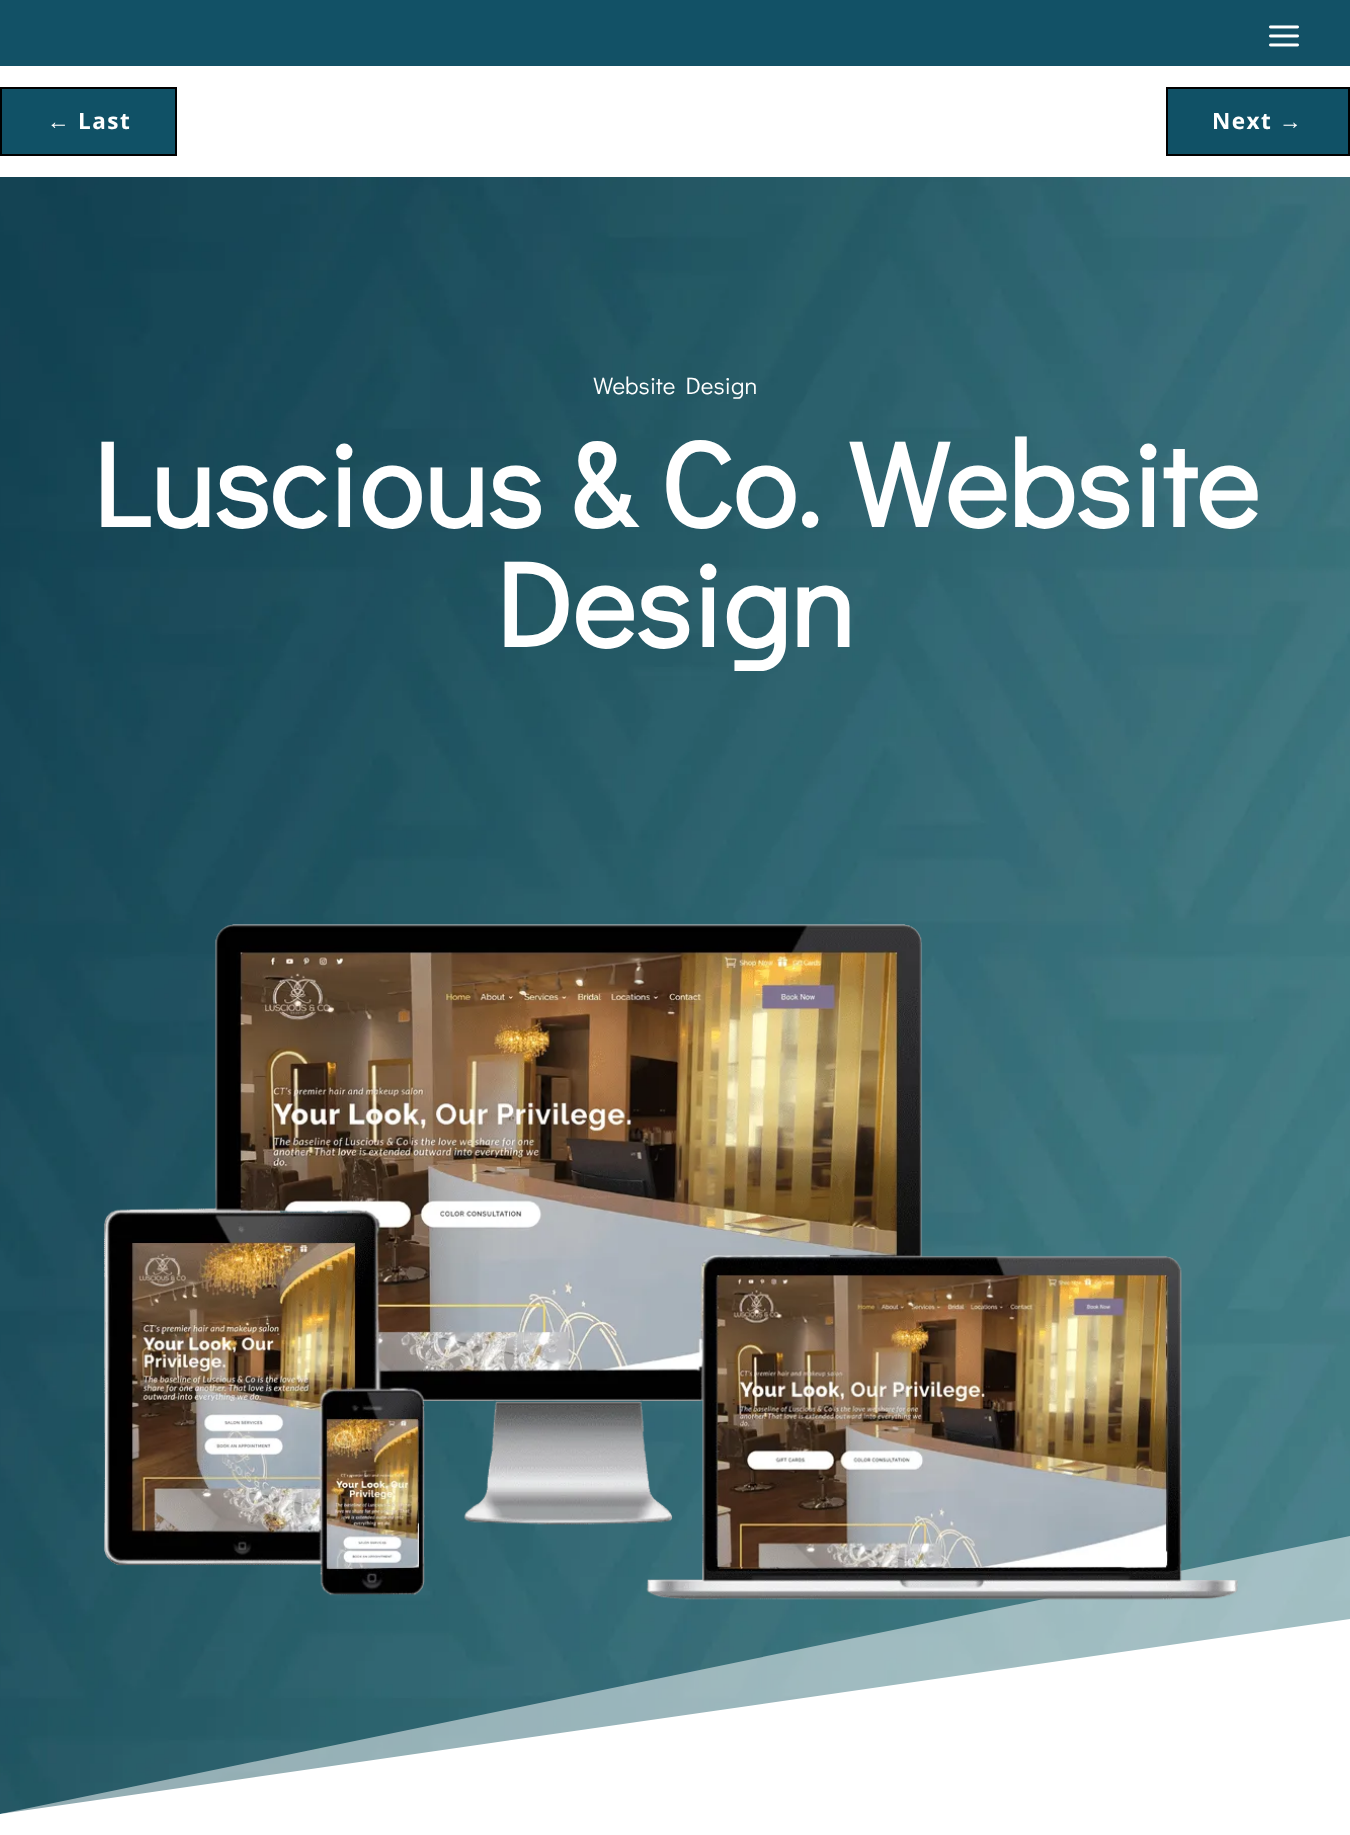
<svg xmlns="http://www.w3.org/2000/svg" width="1350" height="1835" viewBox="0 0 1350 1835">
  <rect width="100%" height="100%" fill="rgb(255,255,255)"/>
  <rect x="0" y="0" width="1350" height="66" fill="rgb(18,81,102)"/>
  <image x="1269" y="25" width="30" height="22" href="pic1.png"/>
  <rect x="1" y="88" width="175" height="67" fill="rgb(16,81,102)" stroke="rgb(0,0,0)" stroke-width="2"/>
  <text x="47" y="129" font-family="Liberation Sans" font-size="22.5" font-weight="bold" letter-spacing="1.5" fill="rgb(255,255,255)">←</text>
  <text x="78" y="129" font-family="Open Sans" font-size="22.5" font-weight="bold" letter-spacing="1.5" fill="rgb(255,255,255)">Last</text>
  <rect x="1167" y="88" width="182" height="67" fill="rgb(16,81,102)" stroke="rgb(0,0,0)" stroke-width="2"/>
  <text x="1212" y="129" font-family="Open Sans" font-size="22.5" font-weight="bold" letter-spacing="1.5" fill="rgb(255,255,255)">Next</text>
  <text x="1279" y="129" font-family="Liberation Sans" font-size="22.5" font-weight="bold" letter-spacing="1.5" fill="rgb(255,255,255)">→</text>
  <rect x="0" y="1813" width="7" height="1" fill="rgb(21,82,101)"/>
  <image x="0" y="177" width="1350" height="1637" href="pic2.png"/>
  <text x="593" y="394" font-family="Didact Gothic" font-size="24" fill="rgb(255,255,255)">Website Design</text>
  <g font-family="Didact Gothic" font-size="120" font-weight="bold" fill="rgb(255,255,255)">
    <text x="92" y="527">Luscious &amp; Co. Website</text>
    <text x="495" y="647">Design</text>
  </g>
  <path d="M1350 1536V1814H0Z" fill="rgba(255,255,255,0.5)"/>
  <image x="103" y="924" width="1135" height="676" href="pic3.png"/>
  <path d="M1350 1619V1814H0Z" fill="rgb(255,255,255)"/>
</svg>
